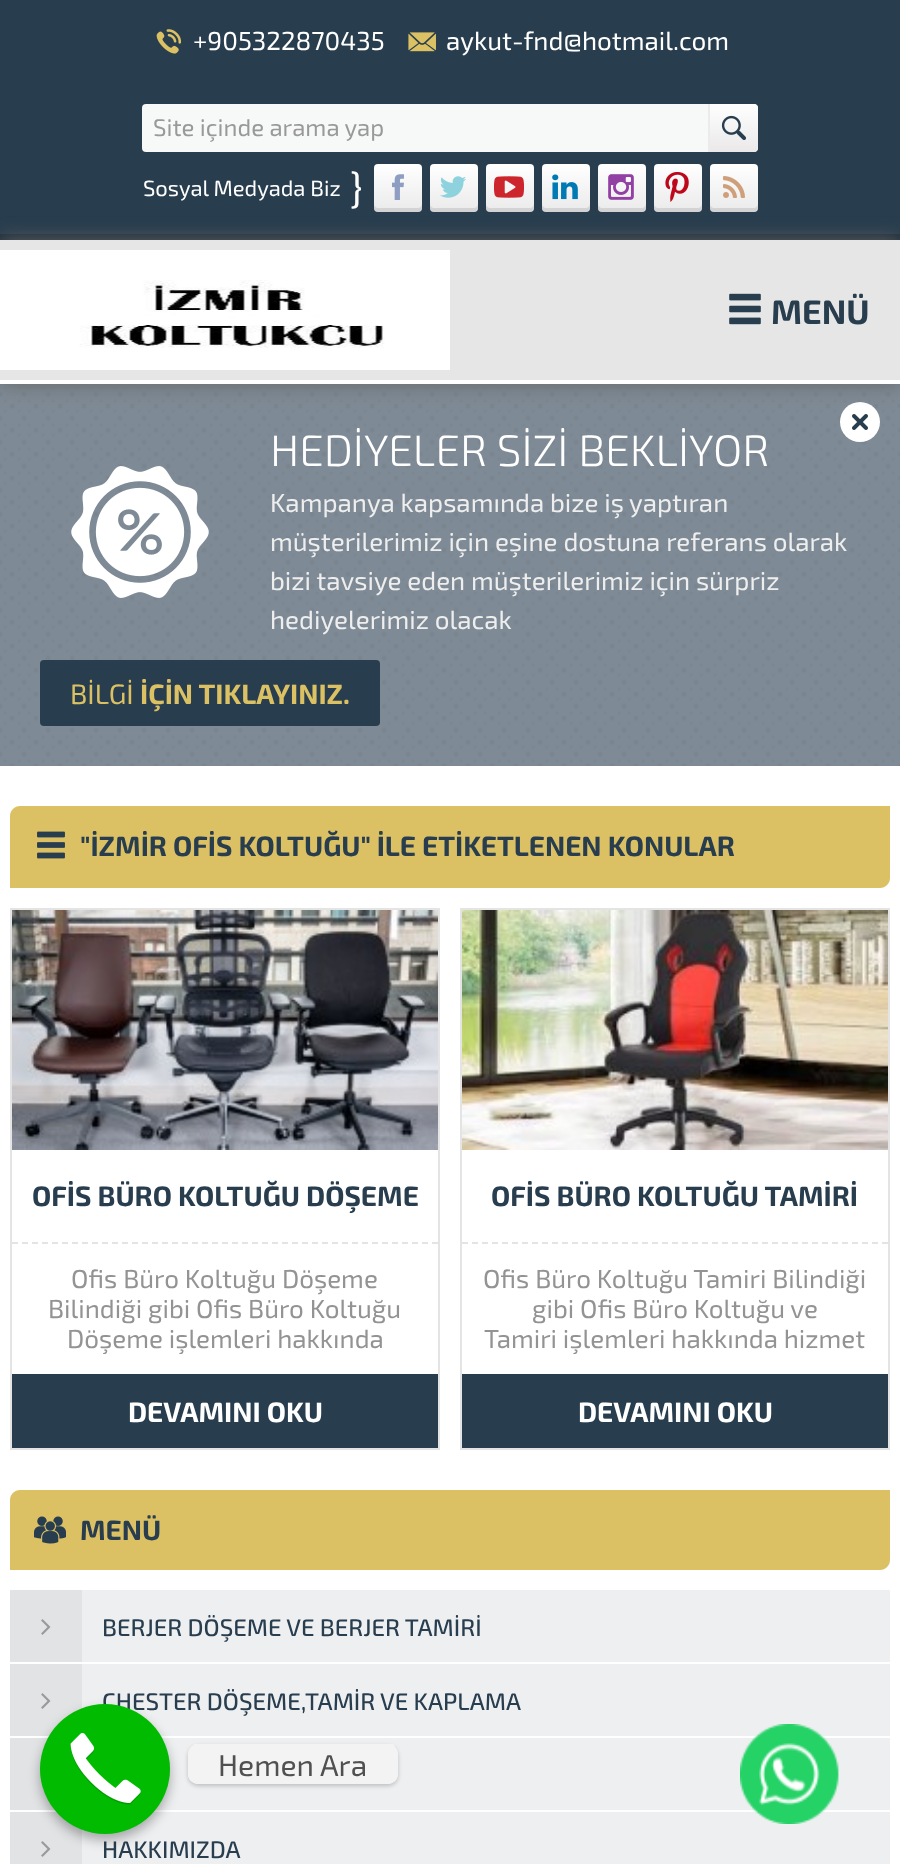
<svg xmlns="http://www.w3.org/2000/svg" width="900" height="1864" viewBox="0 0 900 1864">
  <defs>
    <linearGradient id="g1" gradientUnits="userSpaceOnUse" x1="734" y1="104" x2="734" y2="152"><stop offset="0" stop-color="rgb(255,255,255)"/><stop offset="1" stop-color="rgb(234,232,232)"/></linearGradient>
    <linearGradient id="g2" gradientUnits="userSpaceOnUse" x1="398" y1="212" x2="398" y2="164"><stop offset="0" stop-color="rgb(234,234,234)"/><stop offset="1" stop-color="rgb(255,255,255)"/></linearGradient>
    <linearGradient id="g3" gradientUnits="userSpaceOnUse" x1="454" y1="212" x2="454" y2="164"><stop offset="0" stop-color="rgb(234,234,234)"/><stop offset="1" stop-color="rgb(255,255,255)"/></linearGradient>
    <linearGradient id="g4" gradientUnits="userSpaceOnUse" x1="510" y1="212" x2="510" y2="164"><stop offset="0" stop-color="rgb(234,234,234)"/><stop offset="1" stop-color="rgb(255,255,255)"/></linearGradient>
    <linearGradient id="g5" gradientUnits="userSpaceOnUse" x1="566" y1="212" x2="566" y2="164"><stop offset="0" stop-color="rgb(234,234,234)"/><stop offset="1" stop-color="rgb(255,255,255)"/></linearGradient>
    <linearGradient id="g6" gradientUnits="userSpaceOnUse" x1="622" y1="212" x2="622" y2="164"><stop offset="0" stop-color="rgb(234,234,234)"/><stop offset="1" stop-color="rgb(255,255,255)"/></linearGradient>
    <linearGradient id="g7" gradientUnits="userSpaceOnUse" x1="678" y1="212" x2="678" y2="164"><stop offset="0" stop-color="rgb(234,234,234)"/><stop offset="1" stop-color="rgb(255,255,255)"/></linearGradient>
    <linearGradient id="g8" gradientUnits="userSpaceOnUse" x1="734" y1="212" x2="734" y2="164"><stop offset="0" stop-color="rgb(234,234,234)"/><stop offset="1" stop-color="rgb(255,255,255)"/></linearGradient>
    <clipPath id="clip1"><path d="M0 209H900V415H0ZM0 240H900V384H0Z" clip-rule="evenodd"/></clipPath>
    <clipPath id="clip2"><rect x="32" y="1264" width="386" height="90"/></clipPath>
    <clipPath id="clip3"><rect x="482" y="1264" width="386" height="90"/></clipPath>
    <clipPath id="clip4"><path d="M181 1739H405V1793H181ZM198 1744H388C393.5 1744 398 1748.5 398 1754V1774C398 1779.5 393.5 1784 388 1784H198C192.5 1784 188 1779.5 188 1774V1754C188 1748.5 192.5 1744 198 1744Z" clip-rule="evenodd"/></clipPath>
  </defs>
  <rect width="100%" height="100%" fill="rgb(255,255,255)"/>
  <rect x="0" y="240" width="900" height="140" fill="rgb(230,230,230)"/>
  <rect x="0" y="0" width="900" height="234" fill="rgb(40,61,78)"/>
  <rect x="0" y="234" width="900" height="6" fill="rgb(30,46,59)"/>
  <image x="156" y="29" width="26" height="25" href="pic1.png"/>
  <text x="193" y="50" font-family="'Exo 2'" font-size="26" fill="rgb(255,255,255)">+905322870435</text>
  <image x="408" y="32" width="28" height="20" href="pic2.png"/>
  <text x="446" y="50" font-family="'Exo 2'" font-size="26" fill="rgb(255,255,255)">aykut-fnd@hotmail.com</text>
  <rect x="142" y="104" width="616" height="48" rx="4" fill="rgb(247,248,248)"/>
  <text x="153" y="136" font-family="'Exo 2'" font-size="24" fill="rgb(153,153,153)">Site içinde arama yap</text>
  <path d="M708 104H754C756 104 758 106 758 108V148C758 150 756 152 754 152H708Z" fill="url(#g1)"/>
  <rect x="708" y="104" width="2" height="48" fill="rgb(236,235,235)"/>
  <image x="721" y="115" width="25" height="25" href="pic3.png"/>
  <text x="143" y="196" font-family="'Exo 2'" font-size="22" fill="rgb(255,255,255)">Sosyal Medyada Biz</text>
  <text x="350" y="202" font-family="'Exo 2'" font-size="40" fill="rgb(255,255,255)">}</text>
  <rect x="374" y="164" width="48" height="48" rx="4" fill="url(#g2)"/>
  <path d="M374 204C374 213 376 212 385 212H411C420 212 422 213 422 204C422 206 420 208 418 208H378C376 208 374 206 374 204Z" fill="rgba(0,0,0,0.1)"/>
  <image x="392" y="174" width="12" height="26" href="pic4.png"/>
  <rect x="430" y="164" width="48" height="48" rx="4" fill="url(#g3)"/>
  <path d="M430 204C430 213 432 212 441 212H467C476 212 478 213 478 204C478 206 476 208 474 208H434C432 208 430 206 430 204Z" fill="rgba(0,0,0,0.1)"/>
  <image x="440" y="176" width="26" height="22" href="pic5.png"/>
  <rect x="486" y="164" width="48" height="48" rx="4" fill="url(#g4)"/>
  <path d="M486 204C486 213 488 212 497 212H523C532 212 534 213 534 204C534 206 532 208 530 208H490C488 208 486 206 486 204Z" fill="rgba(0,0,0,0.1)"/>
  <image x="494" y="176" width="30" height="22" href="pic6.png"/>
  <rect x="542" y="164" width="48" height="48" rx="4" fill="url(#g5)"/>
  <path d="M542 204C542 213 544 212 553 212H579C588 212 590 213 590 204C590 206 588 208 586 208H546C544 208 542 206 542 204Z" fill="rgba(0,0,0,0.1)"/>
  <image x="552" y="174" width="26" height="26" href="pic7.png"/>
  <rect x="598" y="164" width="48" height="48" rx="4" fill="url(#g6)"/>
  <path d="M598 204C598 213 600 212 609 212H635C644 212 646 213 646 204C646 206 644 208 642 208H602C600 208 598 206 598 204Z" fill="rgba(0,0,0,0.1)"/>
  <image x="608" y="174" width="26" height="26" href="pic8.png"/>
  <rect x="654" y="164" width="48" height="48" rx="4" fill="url(#g7)"/>
  <path d="M654 204C654 213 656 212 665 212H691C700 212 702 213 702 204C702 206 700 208 698 208H658C656 208 654 206 654 204Z" fill="rgba(0,0,0,0.1)"/>
  <image x="665" y="172" width="24" height="30" href="pic9.png"/>
  <rect x="710" y="164" width="48" height="48" rx="4" fill="url(#g8)"/>
  <path d="M710 204C710 213 712 212 721 212H747C756 212 758 213 758 204C758 206 756 208 754 208H714C712 208 710 206 710 204Z" fill="rgba(0,0,0,0.1)"/>
  <image x="723" y="176" width="22" height="22" href="pic10.png"/>
  <rect x="0" y="384" width="900" height="382" fill="rgb(126,138,149)"/>
  <image x="0" y="387" width="900" height="379" href="pic14.png"/>
  <circle cx="860" cy="422" r="20" fill="rgb(255,255,255)"/>
  <image x="852" y="414" width="16" height="16" href="pic13.png"/>
  <g clip-path="url(#clip1)">
    <rect x="0" y="240" width="900" height="144" fill="rgb(102,102,102)" filter="blur(10px)"/>
  </g>
  <image x="0" y="250" width="450" height="120" href="pic11.png"/>
  <image x="729" y="293" width="32" height="32" href="pic12.png"/>
  <text x="771" y="324" font-family="'Exo 2'" font-size="34" font-weight="bold" fill="rgb(40,61,78)">MENÜ</text>
  <text x="270" y="466" font-family="'Exo 2'" font-size="44" font-weight="300" fill="rgb(255,255,255)">HEDİYELER SİZİ BEKLİYOR</text>
  <image x="71" y="466" width="138" height="132" href="pic15.png"/>
  <g font-family="'Exo 2'" font-size="26" fill="rgb(238,238,238)">
    <text>
      <tspan x="270" y="512">Kampanya kapsamında bize iş yaptıran</tspan>
      <tspan x="270" y="551">müşterilerimiz için eşine dostuna referans olarak</tspan>
      <tspan x="270" y="590">bizi tavsiye eden müşterilerimiz için sürpriz</tspan>
      <tspan x="270" y="629">hediyelerimiz olacak</tspan>
    </text>
  </g>
  <rect x="40" y="660" width="340" height="66" rx="4" fill="rgb(40,61,78)"/>
  <text x="70" y="704" font-family="'Exo 2'" font-size="28" fill="rgb(219,193,100)">BİLGİ</text>
  <text x="140" y="704" font-family="'Exo 2'" font-size="28" font-weight="bold" fill="rgb(219,193,100)">İÇİN TIKLAYINIZ.</text>
  <path d="M20 806H890V878C890 883.5 885.5 888 880 888H10V816C10 810.5 14.5 806 20 806Z" fill="rgb(219,193,100)"/>
  <image x="37" y="831" width="28" height="28" href="pic16.png"/>
  <text x="80" y="856" font-family="'Exo 2'" font-size="28" font-weight="bold" fill="rgb(40,61,78)">"İZMİR OFİS KOLTUĞU" İLE ETİKETLENEN KONULAR</text>
  <rect x="11" y="909" width="428" height="540" fill="none" stroke="rgb(228,228,228)" stroke-width="2"/>
  <image x="12" y="910" width="426" height="240" href="pic17.png"/>
  <path d="M12 1243H438" fill="none" stroke="rgb(228,228,228)" stroke-width="2" stroke-dasharray="6 4"/>
  <text x="32" y="1206" font-family="'Exo 2'" font-size="28" font-weight="bold" fill="rgb(40,61,78)">OFİS BÜRO KOLTUĞU DÖŞEME</text>
  <g font-family="'Exo 2'" font-size="26" fill="rgb(147,147,147)">
    <text x="71" y="1288">Ofis Büro Koltuğu Döşeme</text>
    <text x="48" y="1318">Bilindiği gibi Ofis Büro Koltuğu</text>
  </g>
  <g clip-path="url(#clip2)">
    <text x="67" y="1348" font-family="'Exo 2'" font-size="26" fill="rgb(147,147,147)">Döşeme işlemleri hakkında</text>
  </g>
  <rect x="12" y="1374" width="426" height="74" fill="rgb(40,61,78)"/>
  <text x="128" y="1422" font-family="'Exo 2'" font-size="28" font-weight="bold" fill="rgb(255,255,255)">DEVAMINI OKU</text>
  <rect x="461" y="909" width="428" height="540" fill="none" stroke="rgb(228,228,228)" stroke-width="2"/>
  <image x="462" y="910" width="426" height="240" href="pic18.png"/>
  <path d="M462 1243H888" fill="none" stroke="rgb(228,228,228)" stroke-width="2" stroke-dasharray="6 4"/>
  <text x="491" y="1206" font-family="'Exo 2'" font-size="28" font-weight="bold" fill="rgb(40,61,78)">OFİS BÜRO KOLTUĞU TAMİRİ</text>
  <g font-family="'Exo 2'" font-size="26" fill="rgb(147,147,147)">
    <text x="483" y="1288">Ofis Büro Koltuğu Tamiri Bilindiği</text>
    <text x="532" y="1318">gibi Ofis Büro Koltuğu ve</text>
  </g>
  <g clip-path="url(#clip3)">
    <text x="484" y="1348" font-family="'Exo 2'" font-size="26" fill="rgb(147,147,147)">Tamiri işlemleri hakkında hizmet</text>
  </g>
  <rect x="462" y="1374" width="426" height="74" fill="rgb(40,61,78)"/>
  <text x="578" y="1422" font-family="'Exo 2'" font-size="28" font-weight="bold" fill="rgb(255,255,255)">DEVAMINI OKU</text>
  <path d="M20 1490H890V1560C890 1565.5 885.5 1570 880 1570H10V1500C10 1494.5 14.5 1490 20 1490Z" fill="rgb(219,193,100)"/>
  <image x="34" y="1516" width="32" height="28" href="pic19.png"/>
  <text x="80" y="1540" font-family="'Exo 2'" font-size="28" font-weight="bold" fill="rgb(40,61,78)">MENÜ</text>
  <rect x="82" y="1590" width="808" height="72" fill="rgb(238,239,241)"/>
  <rect x="10" y="1590" width="72" height="72" fill="rgb(226,227,229)"/>
  <image x="41" y="1619" width="10" height="16" href="pic20.png"/>
  <text x="102" y="1636" font-family="'Exo 2'" font-size="24" font-weight="500" fill="rgb(40,61,78)">BERJER DÖŞEME VE BERJER TAMİRİ</text>
  <rect x="82" y="1664" width="808" height="72" fill="rgb(238,239,241)"/>
  <rect x="10" y="1664" width="72" height="72" fill="rgb(226,227,229)"/>
  <image x="41" y="1693" width="10" height="16" href="pic20.png"/>
  <text x="102" y="1710" font-family="'Exo 2'" font-size="24" font-weight="500" fill="rgb(40,61,78)">CHESTER DÖŞEME,TAMİR VE KAPLAMA</text>
  <rect x="155" y="1738" width="735" height="72" fill="rgb(238,239,241)"/>
  <rect x="10" y="1738" width="45" height="72" fill="rgb(226,227,229)"/>
  <image x="41" y="1780" width="1" height="3" href="pic21.png"/>
  <rect x="82" y="1812" width="808" height="52" fill="rgb(238,239,241)"/>
  <rect x="10" y="1812" width="72" height="52" fill="rgb(226,227,229)"/>
  <image x="41" y="1841" width="10" height="16" href="pic20.png"/>
  <text x="102" y="1858" font-family="'Exo 2'" font-size="24" font-weight="500" fill="rgb(40,61,78)">HAKKIMIZDA</text>
  <rect x="40" y="1710" width="130" height="130" rx="65" fill="rgba(0,0,0,0.3)" filter="blur(6px)"/>
  <circle cx="105" cy="1769" r="65" fill="rgb(0,187,0)"/>
  <image x="70" y="1733" width="71" height="72" href="pic22.png"/>
  <g clip-path="url(#clip4)">
    <rect x="188" y="1746" width="210" height="40" rx="10" fill="rgba(0,0,0,0.2)" filter="blur(2px)"/>
  </g>
  <rect x="188" y="1744" width="210" height="40" rx="10" fill="rgba(243,243,243,0.96)"/>
  <rect x="194" y="1744" width="200" height="2" fill="rgb(243,243,243)"/>
  <text x="218" y="1776" font-family="'Exo 2'" font-size="30" fill="rgb(80,80,80)">Hemen Ara</text>
  <image x="740" y="1724" width="99" height="100" href="pic23.png"/>
</svg>
